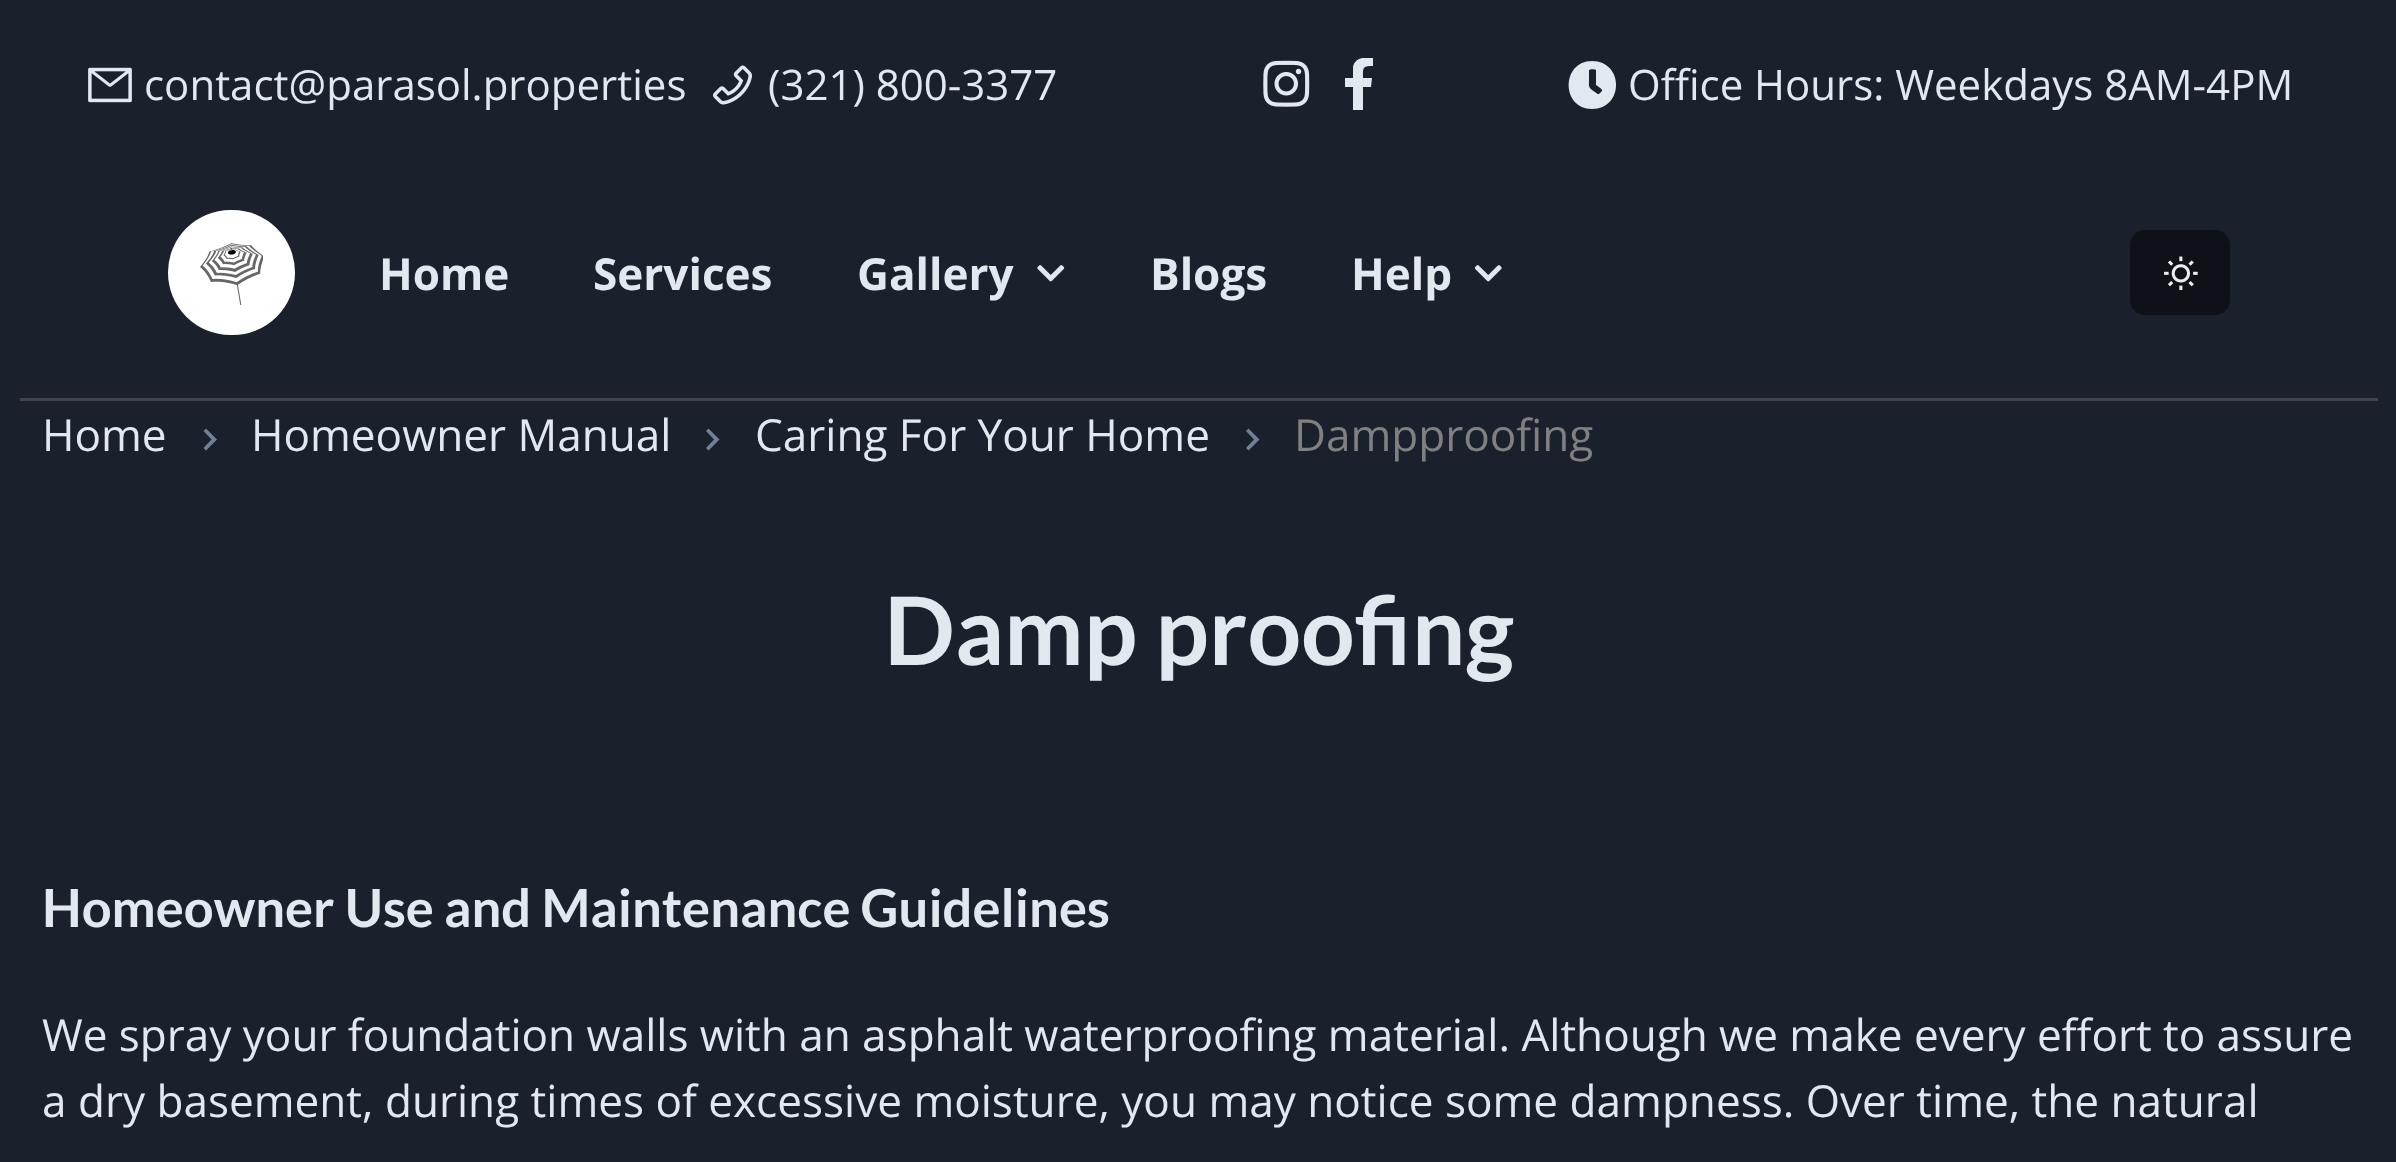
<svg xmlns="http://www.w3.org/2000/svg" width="2396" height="1162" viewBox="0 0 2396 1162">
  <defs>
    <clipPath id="clip1"><rect x="1333" y="58" width="52" height="52"/></clipPath>
  </defs>
  <rect width="100%" height="100%" fill="rgb(26,32,44)"/>
  <image x="88" y="67" width="44" height="36" href="pic1.png"/>
  <text x="144" y="100" font-family="Open Sans" font-size="42" fill="rgb(226,232,240)">contact@parasol.properties</text>
  <image x="713" y="65" width="39" height="40" href="pic2.png"/>
  <text x="768" y="100" font-family="Open Sans" font-size="42" fill="rgb(226,232,240)">(321) 800-3377</text>
  <image x="1263" y="60" width="47" height="47" href="pic3.png"/>
  <g clip-path="url(#clip1)">
    <path d="M1371 87L1372 78H1363C1363 68 1362 66 1373 66V58C1365 57 1355 57 1353 67V78H1345V87H1353V110H1363V87Z" fill="rgb(226,232,240)"/>
  </g>
  <path d="M1592 61C1561 61 1561 109 1592 109C1624 109 1624 61 1592 61ZM1602 91C1598 95 1599 95 1595 92C1588 87 1589 88 1589 79V70C1590 69 1595 69 1596 70V85C1597 86 1603 89 1602 91Z" fill="rgb(226,232,240)"/>
  <text x="1628" y="100" font-family="Open Sans" font-size="42" fill="rgb(226,232,240)">Office Hours: Weekdays 8AM-4PM</text>
  <rect x="20" y="398" width="2358" height="3" fill="rgb(63,68,78)"/>
  <rect x="168" y="210" width="127" height="125" rx="62.5" fill="rgb(255,255,255)"/>
  <image x="200" y="243" width="63" height="62" href="pic4.png"/>
  <g font-family="Open Sans" font-size="44.1" font-weight="bold" fill="rgb(226,232,240)">
    <text x="379" y="290">Home</text>
    <text x="593" y="290">Services</text>
    <text x="857" y="290">Gallery</text>
  </g>
  <image x="1037" y="265" width="28" height="17" href="pic5.png"/>
  <g font-family="Open Sans" font-size="44.1" font-weight="bold" fill="rgb(226,232,240)">
    <text x="1150" y="290">Blogs</text>
    <text x="1351" y="290">Help</text>
  </g>
  <image x="1474" y="265" width="28" height="17" href="pic6.png"/>
  <rect x="2130" y="230" width="100" height="85" rx="15" fill="rgb(14,17,23)"/>
  <image x="2164" y="256" width="34" height="34" href="pic7.png"/>
  <text x="42" y="451" font-family="Open Sans" font-size="44.1" fill="rgb(226,232,240)">Home</text>
  <path d="M206 428.5L203.5 431L211.5 439.5L203.5 448L206 450.5L217 439.5Z" fill="rgb(113,128,150)"/>
  <text x="251" y="451" font-family="Open Sans" font-size="44.1" fill="rgb(226,232,240)">Homeowner Manual</text>
  <path d="M708.5 428.5L706 431L714 439.5L706 448L708.5 450.5L719.5 439.5Z" fill="rgb(113,128,150)"/>
  <text x="755" y="451" font-family="Open Sans" font-size="44.1" fill="rgb(226,232,240)">Caring For Your Home</text>
  <path d="M1248.5 428.5L1246 431L1254 439.5L1246 448L1248.5 450.5L1259.5 439.5Z" fill="rgb(113,128,150)"/>
  <text x="1294" y="451" font-family="Open Sans" font-size="44.1" fill="rgb(128,128,128)">Dampproofing</text>
  <text x="884" y="665" font-family="Lato" font-size="94.5" font-weight="bold" fill="rgb(226,232,240)">Damp proofing</text>
  <text x="42" y="927" font-family="Lato" font-size="52.5" font-weight="bold" fill="rgb(226,232,240)">Homeowner Use and Maintenance Guidelines</text>
  <g font-family="Open Sans" font-size="44.1" fill="rgb(226,232,240)">
    <text>
      <tspan x="42" y="1051" word-spacing="-0.1">We spray your foundation walls with an asphalt waterproofing material. Although we make every effort to assure</tspan>
      <tspan x="42" y="1117">a dry basement, during times of excessive moisture, you may notice some dampness. Over time, the natural</tspan>
    </text>
  </g>
</svg>
